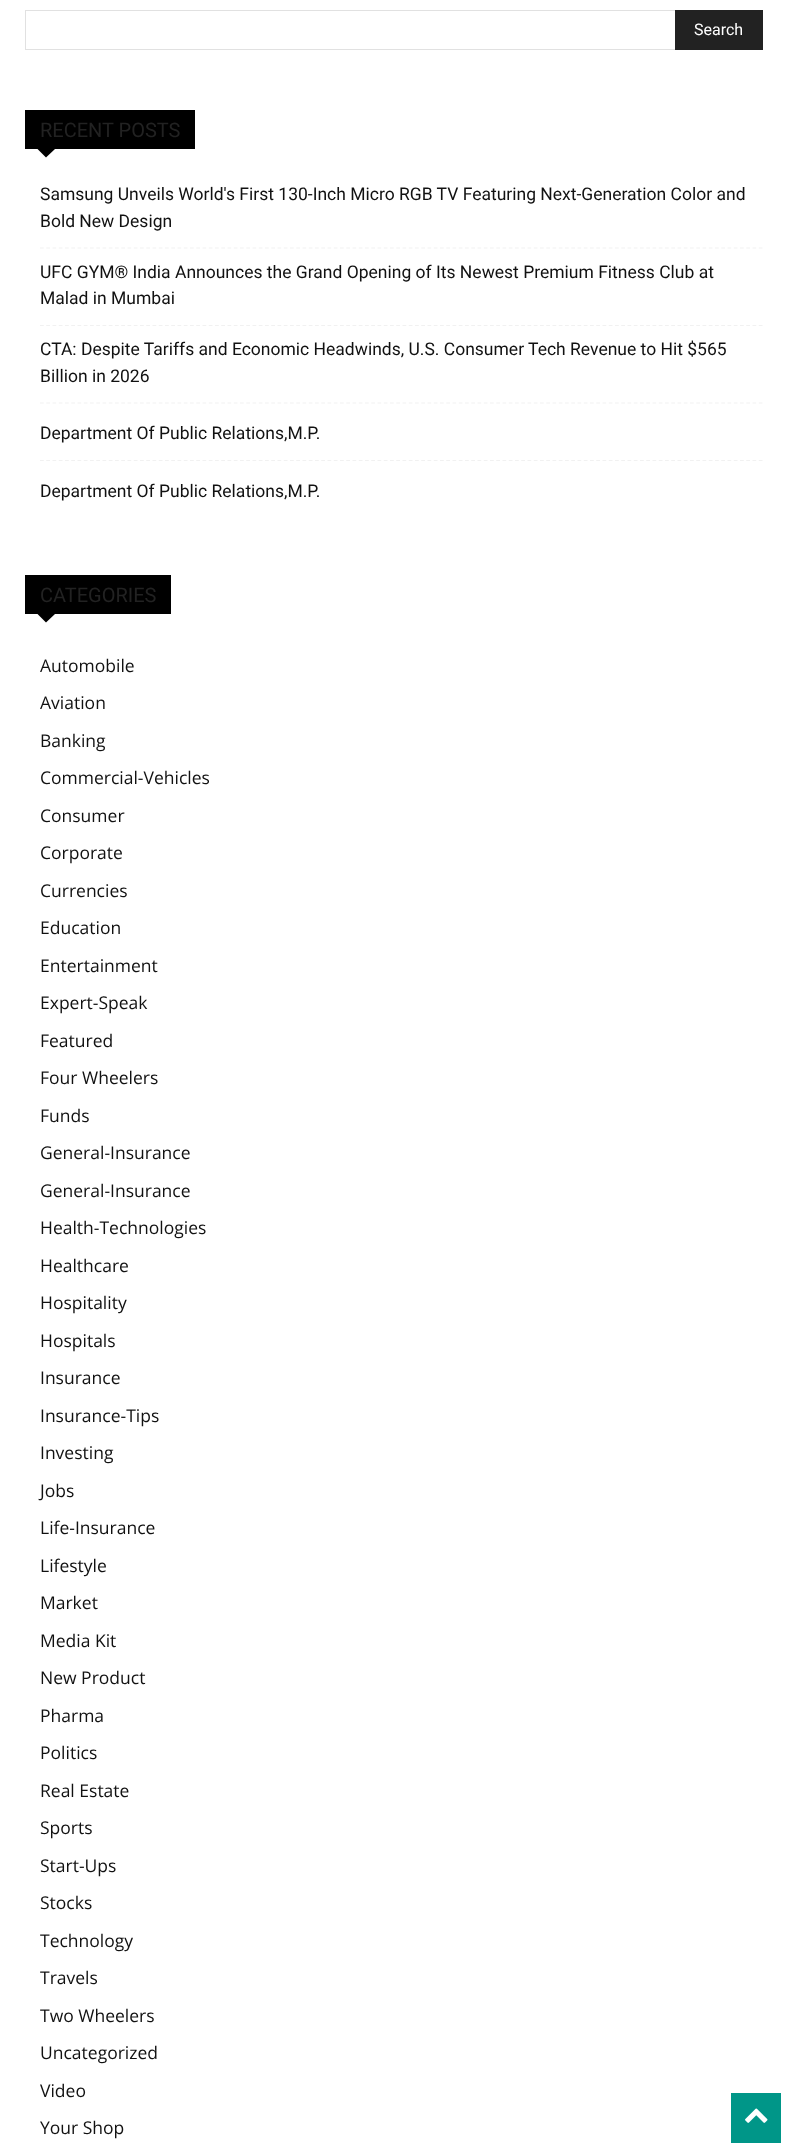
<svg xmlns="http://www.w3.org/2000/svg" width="787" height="2147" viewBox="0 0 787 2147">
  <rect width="100%" height="100%" fill="rgb(255,255,255)"/>
  <rect x="25" y="10" width="650" height="1" fill="rgb(225,225,225)"/>
  <rect x="25" y="49" width="650" height="1" fill="rgb(225,225,225)"/>
  <rect x="25" y="10" width="1" height="40" fill="rgb(225,225,225)"/>
  <rect x="675" y="10" width="88" height="40" fill="rgb(34,34,34)"/>
  <text x="694" y="35" font-family="Roboto" font-size="16" fill="rgb(255,255,255)">Search</text>
  <rect x="25" y="110" width="170" height="39" fill="rgb(0,0,0)"/>
  <text x="40" y="137" font-family="Roboto" font-size="20" fill="rgb(34,34,34)">RECENT POSTS</text>
  <path d="M37.5 149H55L46 157.5Z" fill="rgb(0,0,0)"/>
  <path d="M40 248H762.5" fill="none" stroke="rgb(241,241,241)" stroke-width="1.2" stroke-dasharray="3.75 2.5"/>
  <g font-family="Roboto" font-size="17.5" fill="rgb(17,17,17)">
    <text>
      <tspan x="40" y="200">Samsung Unveils World's First 130-Inch Micro RGB TV Featuring Next-Generation Color and</tspan>
      <tspan x="40" y="227">Bold New Design</tspan>
    </text>
  </g>
  <path d="M40 325.5H762.5" fill="none" stroke="rgb(241,241,241)" stroke-width="1.2" stroke-dasharray="3.75 2.5"/>
  <g font-family="Roboto" font-size="17.5" fill="rgb(17,17,17)">
    <text>
      <tspan x="40" y="278">UFC GYM® India Announces the Grand Opening of Its Newest Premium Fitness Club at</tspan>
      <tspan x="40" y="304">Malad in Mumbai</tspan>
    </text>
  </g>
  <path d="M40 403H762.5" fill="none" stroke="rgb(241,241,241)" stroke-width="1.2" stroke-dasharray="3.75 2.5"/>
  <g font-family="Roboto" font-size="17.5" fill="rgb(17,17,17)">
    <text>
      <tspan x="40" y="355">CTA: Despite Tariffs and Economic Headwinds, U.S. Consumer Tech Revenue to Hit $565</tspan>
      <tspan x="40" y="382">Billion in 2026</tspan>
    </text>
  </g>
  <path d="M40 460.5H762.5" fill="none" stroke="rgb(241,241,241)" stroke-width="1.2" stroke-dasharray="3.75 2.5"/>
  <g font-family="Roboto" font-size="17.5" fill="rgb(17,17,17)">
    <text x="40" y="439">Department Of Public Relations,M.P.</text>
    <text x="40" y="497">Department Of Public Relations,M.P.</text>
  </g>
  <rect x="25" y="575" width="146" height="39" fill="rgb(0,0,0)"/>
  <text x="40" y="602" font-family="Roboto" font-size="20" fill="rgb(34,34,34)">CATEGORIES</text>
  <path d="M37.5 614H55L46 622.5Z" fill="rgb(0,0,0)"/>
  <g font-family="Open Sans" font-size="17.5" fill="rgb(17,17,17)">
    <text x="40" y="672">Automobile</text>
    <text x="40" y="709">Aviation</text>
    <text x="40" y="747">Banking</text>
    <text x="40" y="784">Commercial-Vehicles</text>
    <text x="40" y="822">Consumer</text>
    <text x="40" y="859">Corporate</text>
    <text x="40" y="897">Currencies</text>
    <text x="40" y="934">Education</text>
    <text x="40" y="972">Entertainment</text>
    <text x="40" y="1009">Expert-Speak</text>
    <text x="40" y="1047">Featured</text>
    <text x="40" y="1084">Four Wheelers</text>
    <text x="40" y="1122">Funds</text>
    <text x="40" y="1159">General-Insurance</text>
    <text x="40" y="1197">General-Insurance</text>
    <text x="40" y="1234">Health-Technologies</text>
    <text x="40" y="1272">Healthcare</text>
    <text x="40" y="1309">Hospitality</text>
    <text x="40" y="1347">Hospitals</text>
    <text x="40" y="1384">Insurance</text>
    <text x="40" y="1422">Insurance-Tips</text>
    <text x="40" y="1459">Investing</text>
    <text x="40" y="1497">Jobs</text>
    <text x="40" y="1534">Life-Insurance</text>
    <text x="40" y="1572">Lifestyle</text>
    <text x="40" y="1609">Market</text>
    <text x="40" y="1647">Media Kit</text>
    <text x="40" y="1684">New Product</text>
    <text x="40" y="1722">Pharma</text>
    <text x="40" y="1759">Politics</text>
    <text x="40" y="1797">Real Estate</text>
    <text x="40" y="1834">Sports</text>
    <text x="40" y="1872">Start-Ups</text>
    <text x="40" y="1909">Stocks</text>
    <text x="40" y="1947">Technology</text>
    <text x="40" y="1984">Travels</text>
    <text x="40" y="2022">Two Wheelers</text>
    <text x="40" y="2059">Uncategorized</text>
    <text x="40" y="2097">Video</text>
    <text x="40" y="2134">Your Shop</text>
  </g>
  <rect x="731" y="2093" width="50" height="50" fill="rgb(0,150,136)"/>
  <image x="745" y="2108" width="23" height="15" href="pic1.png"/>
</svg>
